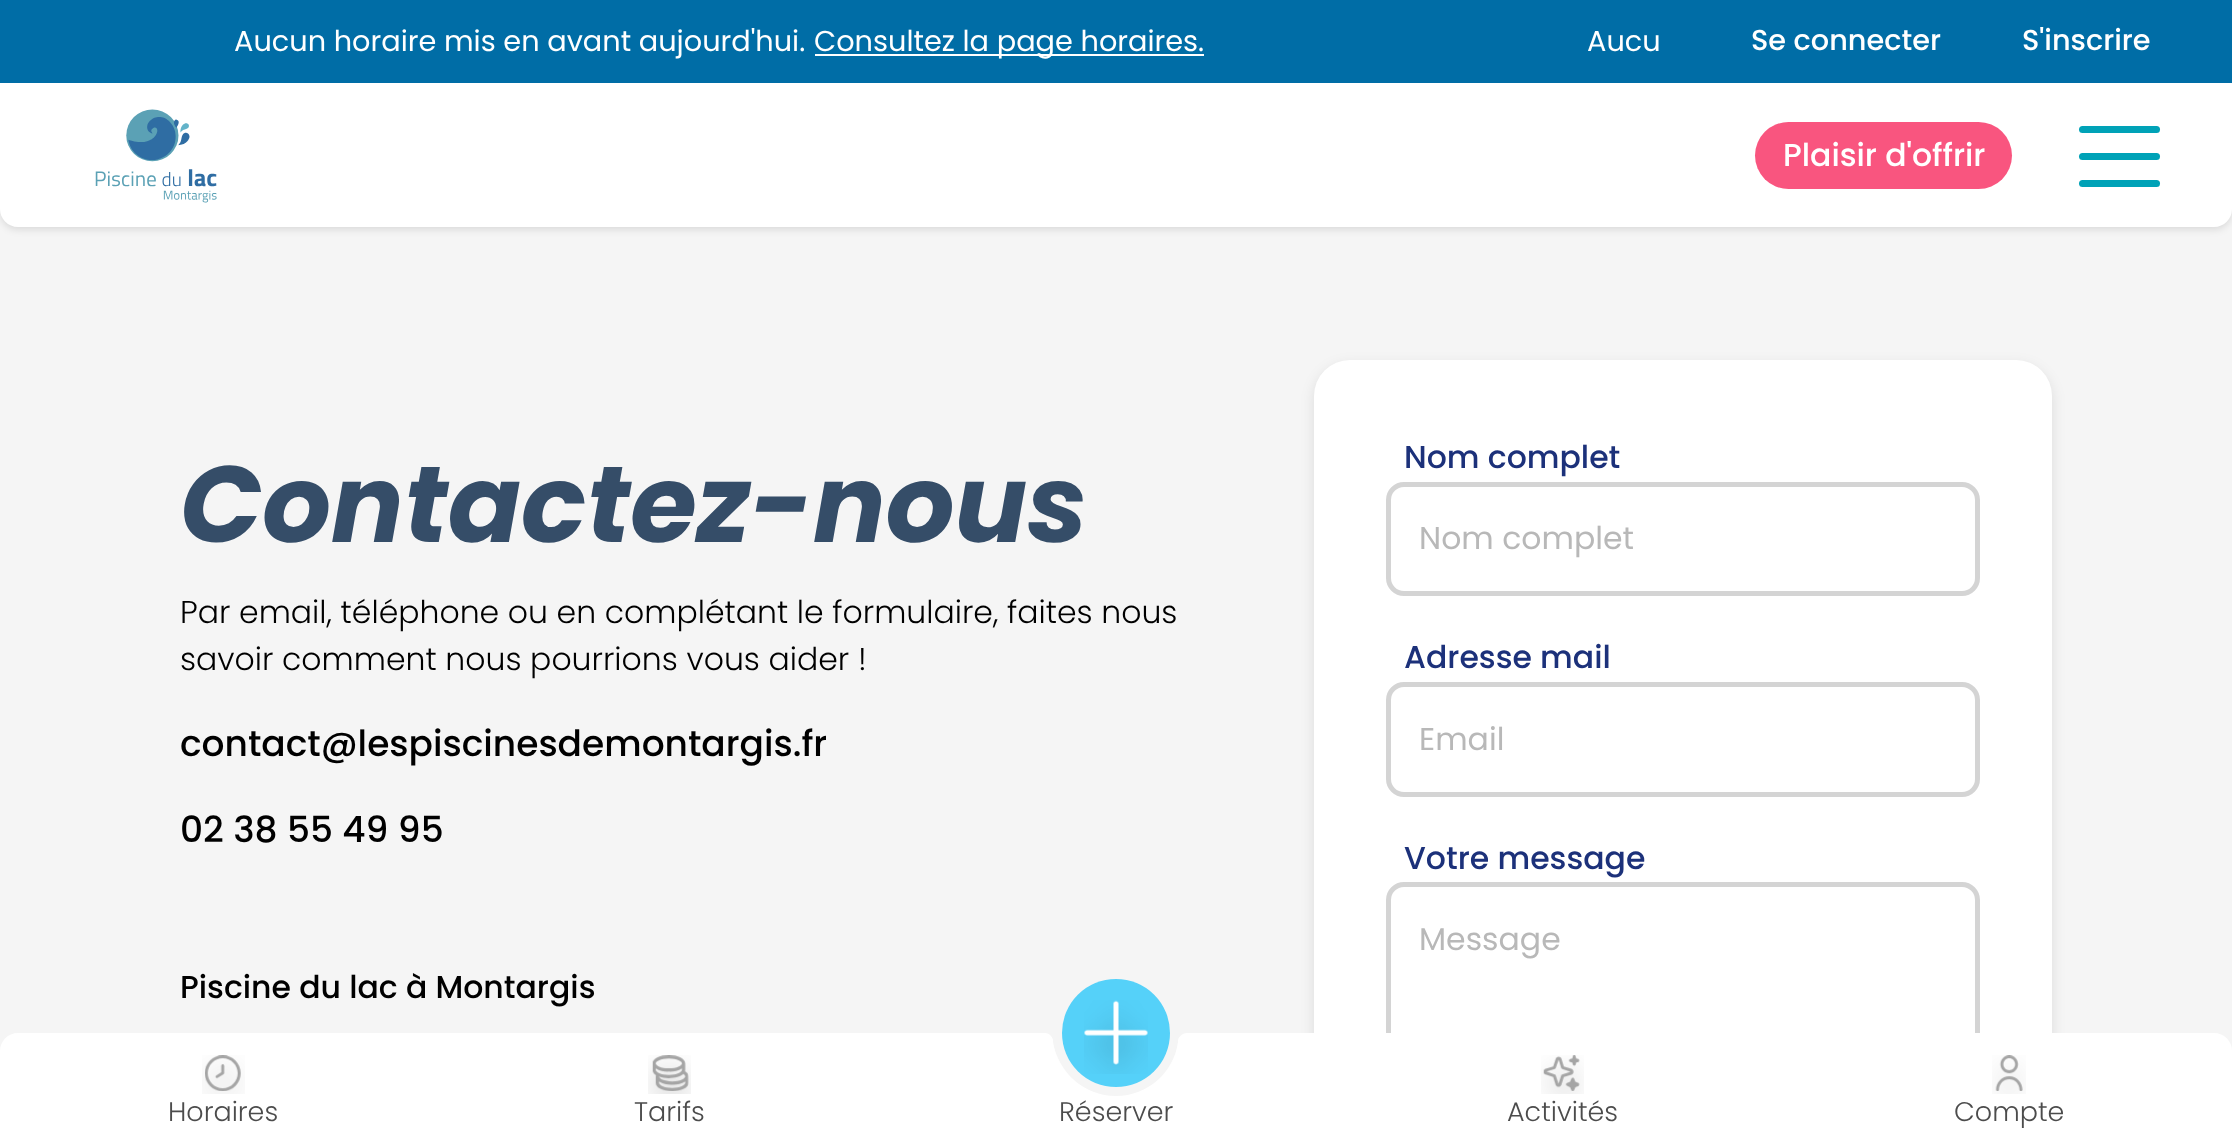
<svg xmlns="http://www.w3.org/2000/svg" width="2232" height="1140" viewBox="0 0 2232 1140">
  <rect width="100%" height="100%" fill="rgb(245,245,245)"/>
  <rect x="0" y="86" width="2232" height="144" rx="18" fill="rgba(0,0,0,0.1)" filter="blur(3.5px)"/>
  <rect x="0" y="0" width="2232" height="83" fill="rgb(0,109,166)"/>
  <text x="234" y="51" font-family="Poppins" font-size="28.75" fill="rgb(255,255,255)">Aucun horaire mis en avant aujourd'hui.</text>
  <rect x="815" y="54" width="389" height="2" fill="rgb(255,255,255)"/>
  <g font-family="Poppins" font-size="28.75" fill="rgb(255,255,255)">
    <text x="814" y="51">Consultez la page horaires.</text>
    <text x="1587" y="51">Aucu</text>
  </g>
  <g font-family="Poppins" font-size="28.75" font-weight="500" fill="rgb(255,255,255)">
    <text x="1751" y="50">Se connecter</text>
    <text x="2022" y="50">S'inscrire</text>
  </g>
  <path d="M0 83H2232V209C2232 219 2224 227 2214 227H18C8 227 0 219 0 209Z" fill="rgb(255,255,255)"/>
  <image x="95" y="109" width="122" height="94" href="pic1.png"/>
  <rect x="1755" y="122" width="257" height="67" rx="33.5" fill="rgb(249,85,127)"/>
  <text x="1783" y="166" font-family="Poppins" font-size="31.5" font-weight="500" fill="rgb(255,255,255)">Plaisir d'offrir</text>
  <rect x="2079" y="126" width="81" height="7" rx="3.5" fill="rgb(0,162,183)"/>
  <rect x="2079" y="153" width="81" height="7" rx="3.5" fill="rgb(0,162,183)"/>
  <rect x="2079" y="180" width="81" height="7" rx="3.5" fill="rgb(0,162,183)"/>
  <text x="180" y="542" font-family="Poppins" font-size="108" font-weight="bold" font-style="italic" fill="rgb(53,77,104)">Contactez-nous</text>
  <g font-family="Poppins" font-size="31.5" font-weight="300" fill="rgb(0,0,0)">
    <text>
      <tspan x="180" y="623">Par email, téléphone ou en complétant le formulaire, faites nous</tspan>
      <tspan x="180" y="670">savoir comment nous pourrions vous aider !</tspan>
    </text>
  </g>
  <g font-family="Poppins" font-size="36" font-weight="500" fill="rgb(0,0,0)">
    <text x="180" y="756">contact@lespiscinesdemontargis.fr</text>
    <text x="180" y="842">02 38 55 49 95</text>
  </g>
  <text x="180" y="998" font-family="Poppins" font-size="31.5" font-weight="500" fill="rgb(0,0,0)">Piscine du lac à Montargis</text>
  <rect x="1314" y="365" width="738" height="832" rx="36" fill="rgba(0,0,0,0.1)" filter="blur(7px)"/>
  <rect x="1314" y="360" width="738" height="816" rx="36" fill="rgb(255,255,255)"/>
  <text x="1404" y="468" font-family="Poppins" font-size="31.5" font-weight="500" fill="rgb(28,49,122)">Nom complet</text>
  <rect x="1388.5" y="484.5" width="589" height="109" rx="15.5" fill="none" stroke="rgb(212,212,212)" stroke-width="5"/>
  <text x="1419" y="549" font-family="Poppins" font-size="31.5" fill="rgb(184,184,184)">Nom complet</text>
  <text x="1404" y="668" font-family="Poppins" font-size="31.5" font-weight="500" fill="rgb(28,49,122)">Adresse mail</text>
  <rect x="1388.5" y="684.5" width="589" height="110" rx="15.5" fill="none" stroke="rgb(212,212,212)" stroke-width="5"/>
  <text x="1419" y="750" font-family="Poppins" font-size="31.5" fill="rgb(184,184,184)">Email</text>
  <text x="1404" y="869" font-family="Poppins" font-size="31.5" font-weight="500" fill="rgb(28,49,122)">Votre message</text>
  <rect x="1388.5" y="884.5" width="589" height="252" rx="15.5" fill="none" stroke="rgb(212,212,212)" stroke-width="5"/>
  <text x="1419" y="950" font-family="Poppins" font-size="31.5" fill="rgb(184,184,184)">Message</text>
  <path d="M18 1033H446V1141H0V1051C0 1041 8 1033 18 1033Z" fill="rgb(255,255,255)"/>
  <image x="202" y="1055" width="43" height="39" href="pic2.png"/>
  <text x="168" y="1121" font-family="Poppins" font-size="27" font-weight="300" fill="rgb(76,76,76)">Horaires</text>
  <rect x="446" y="1033" width="598" height="107" fill="rgb(255,255,255)"/>
  <image x="648" y="1055" width="43" height="39" href="pic3.png"/>
  <text x="634" y="1121" font-family="Poppins" font-size="27" font-weight="300" fill="rgb(76,76,76)">Tarifs</text>
  <path d="M1188 1033V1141H1044V1033H1045C1049 1033 1052 1036 1053 1040V1042C1058 1072 1084 1096 1116 1096C1148 1096 1174 1072 1178 1042V1040C1179 1036 1183 1033 1187 1033Z" fill="rgb(255,255,255)"/>
  <circle cx="1116" cy="1033" r="54" fill="rgb(85,209,249)"/>
  <image x="1084" y="1000" width="64" height="74" href="pic4.png"/>
  <text x="1059" y="1121" font-family="Poppins" font-size="27" font-weight="300" fill="rgb(76,76,76)">Réserver</text>
  <rect x="1188" y="1033" width="126" height="107" fill="rgb(255,255,255)"/>
  <rect x="1386" y="1033" width="401" height="106" fill="rgb(255,255,255)"/>
  <image x="1541" y="1055" width="43" height="39" href="pic5.png"/>
  <text x="1507" y="1121" font-family="Poppins" font-size="27" font-weight="300" fill="rgb(76,76,76)">Activités</text>
  <path d="M1787 1033H2214C2224 1033 2232 1041 2232 1051V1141H1787Z" fill="rgb(255,255,255)"/>
  <image x="1992" y="1055" width="34" height="39" href="pic6.png"/>
  <text x="1954" y="1121" font-family="Poppins" font-size="27" font-weight="300" fill="rgb(76,76,76)">Compte</text>
</svg>
